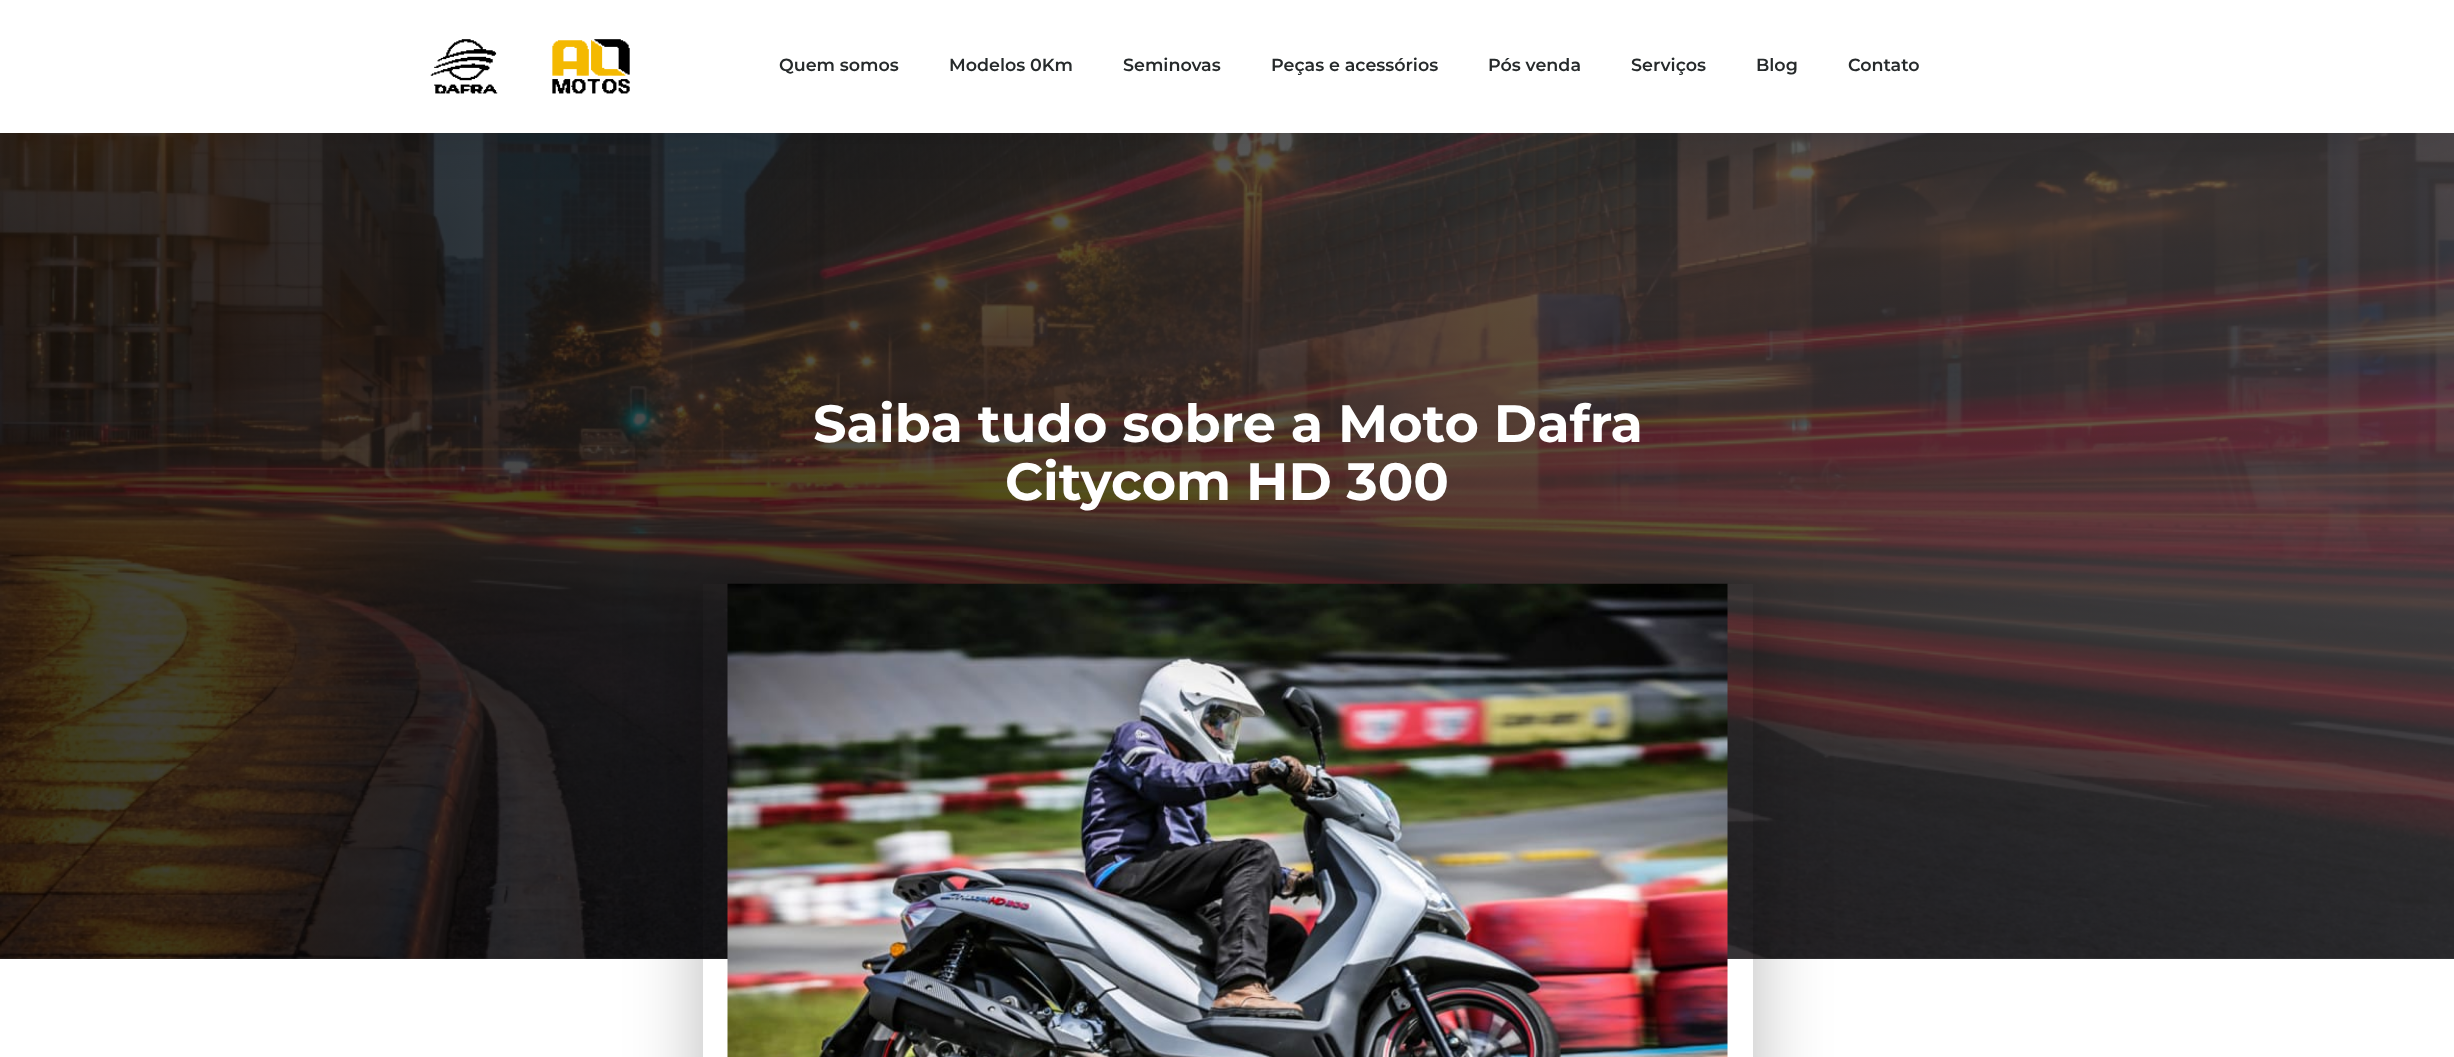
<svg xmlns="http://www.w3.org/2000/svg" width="2454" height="1057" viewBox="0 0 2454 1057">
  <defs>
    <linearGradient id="g1" gradientUnits="userSpaceOnUse" x1="517" y1="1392" x2="1938" y2="-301"><stop offset="0" stop-color="rgb(0,0,0)" stop-opacity="0.77"/><stop offset="1" stop-color="rgb(64,64,64)" stop-opacity="0.77"/></linearGradient>
    <clipPath id="clip1"><path d="M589 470H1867V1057H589ZM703 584H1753V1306H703Z" clip-rule="evenodd"/></clipPath>
  </defs>
  <rect width="100%" height="100%" fill="rgb(255,255,255)"/>
  <image x="0" y="133" width="2454" height="826" href="pic2.png"/>
  <rect x="0" y="133" width="2454" height="826" fill="url(#g1)"/>
  <rect x="0" y="0" width="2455" height="133" fill="rgba(0,0,0,0.1)" filter="blur(24px)"/>
  <rect x="0" y="0" width="2454" height="133" fill="rgb(255,255,255)"/>
  <image x="430" y="39" width="200" height="55" href="pic1.png"/>
  <g font-family="Montserrat" font-size="17.5" font-weight="600" fill="rgb(38,42,43)">
    <text x="779" y="71">Quem somos</text>
    <text x="949" y="71">Modelos 0Km</text>
    <text x="1123" y="71">Seminovas</text>
    <text x="1271" y="71">Peças e acessórios</text>
    <text x="1488" y="71">Pós venda</text>
    <text x="1631" y="71">Serviços</text>
    <text x="1756" y="71">Blog</text>
    <text x="1848" y="71">Contato</text>
  </g>
  <g font-family="Montserrat" font-size="52.5" font-weight="bold" fill="rgb(255,255,255)">
    <text x="813" y="442">Saiba tudo sobre a Moto Dafra</text>
    <text x="1005" y="500">Citycom HD 300</text>
  </g>
  <g clip-path="url(#clip1)">
    <rect x="703" y="584" width="1050" height="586" fill="rgba(0,0,0,0.28)" filter="blur(37.5px)"/>
  </g>
  <image x="727" y="583" width="1001" height="474" href="pic3.png"/>
</svg>
